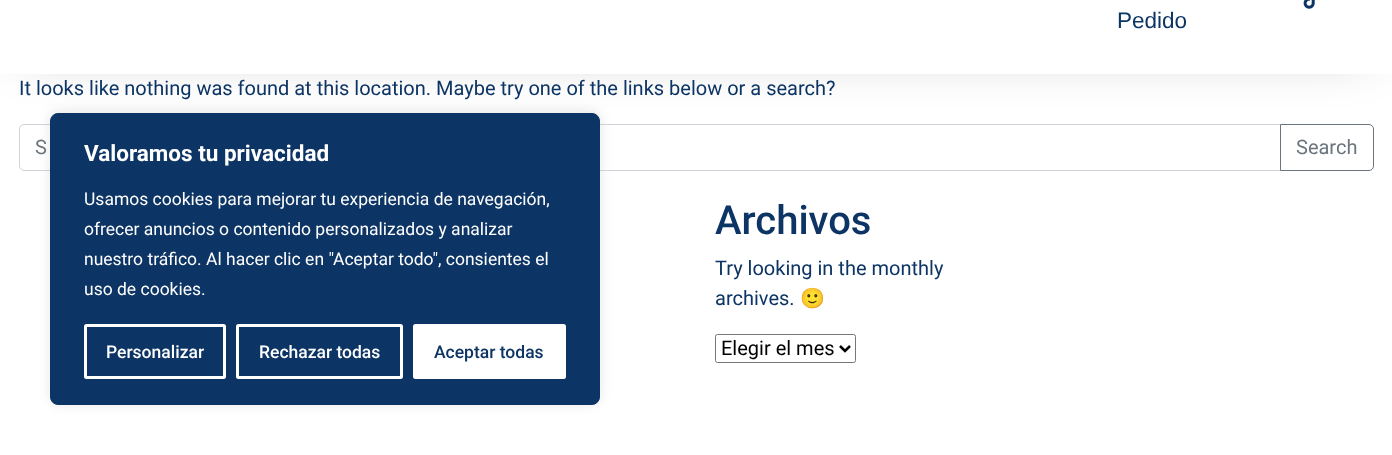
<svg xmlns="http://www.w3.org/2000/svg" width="1392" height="455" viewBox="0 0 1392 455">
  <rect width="100%" height="100%" fill="rgb(255,255,255)"/>
  <rect x="23" y="-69" width="1347" height="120" fill="rgba(0,0,0,0.28)" filter="blur(26px)"/>
  <rect x="0" y="0" width="1392" height="74" fill="rgb(255,255,255)"/>
  <image x="1303" y="0" width="12" height="9" href="pic1.png"/>
  <text x="1117" y="28" font-family="Liberation Sans" font-size="22.5" fill="rgb(12,52,100)">Pedido</text>
  <text x="19" y="95" font-family="Roboto" font-size="20" fill="rgb(12,52,100)">It looks like nothing was found at this location. Maybe try one of the links below or a search?</text>
  <path d="M24 124.5H1280.5V170.5H24C21.5 170.5 19.5 168.5 19.5 166V129C19.5 126.5 21.5 124.5 24 124.5Z" fill="none" stroke="rgb(206,212,218)"/>
  <text x="35" y="154" font-family="Roboto" font-size="20" fill="rgb(108,117,125)">S</text>
  <path d="M1280.5 124.5H1369C1371.5 124.5 1373.5 126.5 1373.5 129V166C1373.5 168.5 1371.5 170.5 1369 170.5H1280.5Z" fill="none" stroke="rgb(108,117,125)"/>
  <text x="1296" y="154" font-family="Roboto" font-size="20" fill="rgb(108,117,125)">Search</text>
  <text x="715" y="234" font-family="Roboto" font-size="40" font-weight="500" fill="rgb(12,52,100)">Archivos</text>
  <g font-family="Roboto" font-size="20" fill="rgb(12,52,100)">
    <text>
      <tspan x="715" y="275">Try looking in the monthly</tspan>
      <tspan x="715" y="305">archives.</tspan>
    </text>
  </g>
  <text x="800" y="305" font-family="Noto Color Emoji" font-size="20" fill="rgb(12,52,100)">🙂</text>
  <rect x="715.5" y="334.5" width="140" height="28" rx="2" fill="none" stroke="rgb(118,118,118)"/>
  <path d="M840 346L845 351L850 346" fill="none" stroke="rgb(0,0,0)" stroke-width="2.5"/>
  <text x="721" y="355" font-family="Roboto" font-size="20" fill="rgb(0,0,0)">Elegir el mes</text>
  <rect x="50" y="111" width="550" height="293" rx="8" fill="rgba(172,171,171,0.3)" filter="blur(6px)"/>
  <rect x="50.5" y="113.5" width="549" height="291" rx="7.5" fill="rgb(12,52,100)" stroke="rgb(12,52,100)"/>
  <text x="84" y="161" font-family="Roboto" font-size="22.5" font-weight="bold" fill="rgb(255,255,255)">Valoramos tu privacidad</text>
  <g font-family="Roboto" font-size="17.5" fill="rgb(255,255,255)">
    <text>
      <tspan x="84" y="205">Usamos cookies para mejorar tu experiencia de navegación,</tspan>
      <tspan x="84" y="235">ofrecer anuncios o contenido personalizados y analizar</tspan>
      <tspan x="84" y="265">nuestro tráfico. Al hacer clic en "Aceptar todo", consientes el</tspan>
      <tspan x="84" y="295">uso de cookies.</tspan>
    </text>
  </g>
  <rect x="85.5" y="325.5" width="139" height="52" rx="1" fill="none" stroke="rgb(255,255,255)" stroke-width="3"/>
  <text x="106" y="358" font-family="Roboto" font-size="17.5" font-weight="500" fill="rgb(255,255,255)">Personalizar</text>
  <rect x="237.5" y="325.5" width="164" height="52" rx="1" fill="none" stroke="rgb(255,255,255)" stroke-width="3"/>
  <text x="259" y="358" font-family="Roboto" font-size="17.5" font-weight="500" fill="rgb(255,255,255)">Rechazar todas</text>
  <rect x="414.5" y="325.5" width="150" height="52" rx="1" fill="rgb(255,255,255)" stroke="rgb(255,255,255)" stroke-width="3"/>
  <text x="434" y="358" font-family="Roboto" font-size="17.5" font-weight="500" fill="rgb(12,52,100)">Aceptar todas</text>
</svg>
